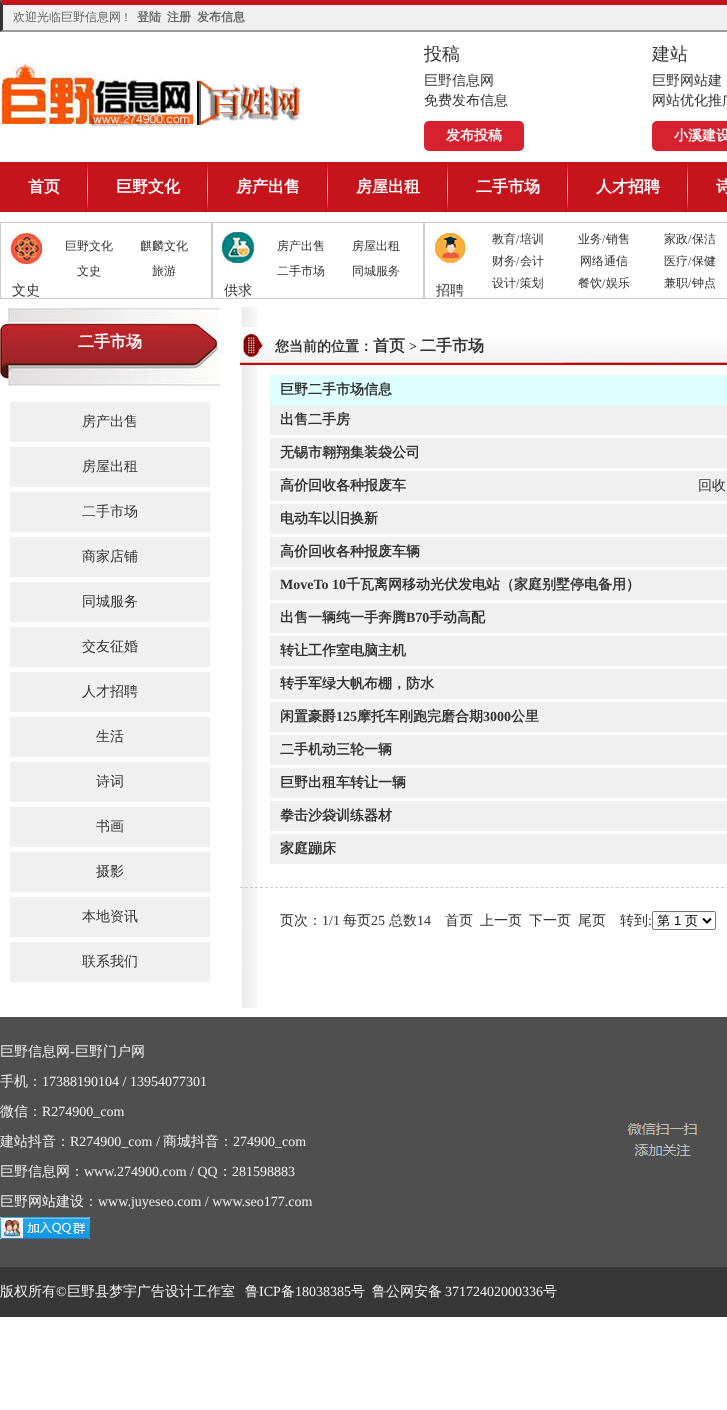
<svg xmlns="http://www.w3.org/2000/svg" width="727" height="1410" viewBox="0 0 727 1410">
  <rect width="100%" height="100%" fill="rgb(255,255,255)"/>
  <rect x="3" y="5" width="724" height="25" fill="rgb(240,240,240)"/>
  <path d="M0 0H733L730 5H3Z" fill="rgb(197,20,28)"/>
  <path d="M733 32H0L3 30H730Z" fill="rgb(153,153,153)"/>
  <path d="M0 32V0L3 5V30Z" fill="rgb(51,51,51)"/>
  <text x="13" y="21" font-family="WenQuanYi Zen Hei" font-size="12" font-weight="500" fill="rgb(102,102,102)">欢迎光临巨野信息网</text>
  <text x="124" y="21" font-family="Liberation Serif" font-size="12" fill="rgb(102,102,102)">!</text>
  <g font-family="WenQuanYi Zen Hei" font-size="12" font-weight="bold" fill="rgb(102,102,102)">
    <text x="137" y="21">登陆</text>
    <text x="167" y="21">注册</text>
    <text x="197" y="21">发布信息</text>
  </g>
  <image x="0" y="62" width="304" height="65" href="pic1.png"/>
  <text x="424" y="60" font-family="WenQuanYi Zen Hei" font-size="18" font-weight="500" fill="rgb(51,51,51)">投稿</text>
  <g font-family="WenQuanYi Zen Hei" font-size="14" font-weight="500" fill="rgb(51,51,51)">
    <text>
      <tspan x="424" y="85">巨野信息网</tspan>
      <tspan x="424" y="105">免费发布信息</tspan>
    </text>
  </g>
  <rect x="424" y="121" width="100" height="30" rx="5" fill="rgb(215,33,47)"/>
  <text x="446" y="140" font-family="WenQuanYi Zen Hei" font-size="14" font-weight="bold" fill="rgb(255,255,255)">发布投稿</text>
  <text x="652" y="60" font-family="WenQuanYi Zen Hei" font-size="18" font-weight="500" fill="rgb(51,51,51)">建站</text>
  <g font-family="WenQuanYi Zen Hei" font-size="14" font-weight="500" fill="rgb(51,51,51)">
    <text>
      <tspan x="652" y="85">巨野网站建</tspan>
      <tspan x="652" y="105">网站优化推广</tspan>
    </text>
  </g>
  <rect x="652" y="121" width="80" height="30" rx="5" fill="rgb(215,33,47)"/>
  <text x="674" y="140" font-family="WenQuanYi Zen Hei" font-size="14" font-weight="bold" fill="rgb(255,255,255)">小溪建设</text>
  <rect x="0" y="162" width="727" height="50" fill="rgb(197,20,28)"/>
  <image x="86" y="162" width="2" height="50" href="pic2.png"/>
  <text x="28" y="192" font-family="WenQuanYi Zen Hei" font-size="16" font-weight="bold" fill="rgb(255,255,255)">首页</text>
  <image x="206" y="162" width="2" height="50" href="pic2.png"/>
  <text x="116" y="192" font-family="WenQuanYi Zen Hei" font-size="16" font-weight="bold" fill="rgb(255,255,255)">巨野文化</text>
  <image x="326" y="162" width="2" height="50" href="pic2.png"/>
  <text x="236" y="192" font-family="WenQuanYi Zen Hei" font-size="16" font-weight="bold" fill="rgb(255,255,255)">房产出售</text>
  <image x="446" y="162" width="2" height="50" href="pic2.png"/>
  <text x="356" y="192" font-family="WenQuanYi Zen Hei" font-size="16" font-weight="bold" fill="rgb(255,255,255)">房屋出租</text>
  <image x="566" y="162" width="2" height="50" href="pic2.png"/>
  <text x="476" y="192" font-family="WenQuanYi Zen Hei" font-size="16" font-weight="bold" fill="rgb(255,255,255)">二手市场</text>
  <image x="686" y="162" width="2" height="50" href="pic2.png"/>
  <g font-family="WenQuanYi Zen Hei" font-size="16" font-weight="bold" fill="rgb(255,255,255)">
    <text x="596" y="192">人才招聘</text>
    <text x="716" y="192">诗</text>
  </g>
  <rect x="0.5" y="222.5" width="211" height="76" fill="none" stroke="rgb(204,204,204)"/>
  <g font-family="WenQuanYi Zen Hei" font-size="12" font-weight="500" fill="rgb(51,51,51)">
    <text x="65" y="250">巨野文化</text>
    <text x="140" y="250">麒麟文化</text>
    <text x="77" y="275">文史</text>
    <text x="152" y="275">旅游</text>
  </g>
  <image x="6" y="228" width="40" height="40" href="pic3.png"/>
  <text x="12" y="295" font-family="WenQuanYi Zen Hei" font-size="14" font-weight="500" fill="rgb(51,51,51)">文史</text>
  <rect x="212.5" y="222.5" width="211" height="76" fill="none" stroke="rgb(204,204,204)"/>
  <g font-family="WenQuanYi Zen Hei" font-size="12" font-weight="500" fill="rgb(51,51,51)">
    <text x="277" y="250">房产出售</text>
    <text x="352" y="250">房屋出租</text>
    <text x="277" y="275">二手市场</text>
    <text x="352" y="275">同城服务</text>
  </g>
  <image x="218" y="228" width="40" height="40" href="pic4.png"/>
  <text x="224" y="295" font-family="WenQuanYi Zen Hei" font-size="14" font-weight="500" fill="rgb(51,51,51)">供求</text>
  <rect x="424.5" y="222.5" width="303" height="76" fill="none" stroke="rgb(204,204,204)"/>
  <image x="430" y="228" width="40" height="40" href="pic5.png"/>
  <text x="436" y="295" font-family="WenQuanYi Zen Hei" font-size="14" font-weight="500" fill="rgb(51,51,51)">招聘</text>
  <text x="492" y="243" font-family="WenQuanYi Zen Hei" font-size="12" font-weight="500" fill="rgb(51,51,51)">教育</text>
  <text x="516" y="243" font-family="Liberation Serif" font-size="12" fill="rgb(51,51,51)">/</text>
  <g font-family="WenQuanYi Zen Hei" font-size="12" font-weight="500" fill="rgb(51,51,51)">
    <text x="520" y="243">培训</text>
    <text x="578" y="243">业务</text>
  </g>
  <text x="602" y="243" font-family="Liberation Serif" font-size="12" fill="rgb(51,51,51)">/</text>
  <g font-family="WenQuanYi Zen Hei" font-size="12" font-weight="500" fill="rgb(51,51,51)">
    <text x="606" y="243">销售</text>
    <text x="664" y="243">家政</text>
  </g>
  <text x="688" y="243" font-family="Liberation Serif" font-size="12" fill="rgb(51,51,51)">/</text>
  <g font-family="WenQuanYi Zen Hei" font-size="12" font-weight="500" fill="rgb(51,51,51)">
    <text x="692" y="243">保洁</text>
    <text x="492" y="265">财务</text>
  </g>
  <text x="516" y="265" font-family="Liberation Serif" font-size="12" fill="rgb(51,51,51)">/</text>
  <g font-family="WenQuanYi Zen Hei" font-size="12" font-weight="500" fill="rgb(51,51,51)">
    <text x="520" y="265">会计</text>
    <text x="580" y="265">网络通信</text>
    <text x="664" y="265">医疗</text>
  </g>
  <text x="688" y="265" font-family="Liberation Serif" font-size="12" fill="rgb(51,51,51)">/</text>
  <g font-family="WenQuanYi Zen Hei" font-size="12" font-weight="500" fill="rgb(51,51,51)">
    <text x="692" y="265">保健</text>
    <text x="492" y="287">设计 策划</text>
  </g>
  <text x="516" y="287" font-family="Liberation Serif" font-size="12" fill="rgb(51,51,51)">/</text>
  <text x="578" y="287" font-family="WenQuanYi Zen Hei" font-size="12" font-weight="500" fill="rgb(51,51,51)">餐饮</text>
  <text x="602" y="287" font-family="Liberation Serif" font-size="12" fill="rgb(51,51,51)">/</text>
  <g font-family="WenQuanYi Zen Hei" font-size="12" font-weight="500" fill="rgb(51,51,51)">
    <text x="606" y="287">娱乐</text>
    <text x="664" y="287">兼职</text>
  </g>
  <text x="688" y="287" font-family="Liberation Serif" font-size="12" fill="rgb(51,51,51)">/</text>
  <text x="692" y="287" font-family="WenQuanYi Zen Hei" font-size="12" font-weight="500" fill="rgb(51,51,51)">钟点</text>
  <image x="0" y="307" width="220" height="80" href="pic6.png"/>
  <text x="78" y="347" font-family="WenQuanYi Zen Hei" font-size="16" font-weight="bold" fill="rgb(255,255,255)">二手市场</text>
  <rect x="10" y="402" width="200" height="40" fill="rgb(240,240,240)"/>
  <text x="82" y="426" font-family="WenQuanYi Zen Hei" font-size="14" font-weight="500" fill="rgb(51,51,51)">房产出售</text>
  <rect x="10" y="447" width="200" height="40" fill="rgb(240,240,240)"/>
  <text x="82" y="471" font-family="WenQuanYi Zen Hei" font-size="14" font-weight="500" fill="rgb(51,51,51)">房屋出租</text>
  <rect x="10" y="492" width="200" height="40" fill="rgb(240,240,240)"/>
  <text x="82" y="516" font-family="WenQuanYi Zen Hei" font-size="14" font-weight="500" fill="rgb(51,51,51)">二手市场</text>
  <rect x="10" y="537" width="200" height="40" fill="rgb(240,240,240)"/>
  <text x="82" y="561" font-family="WenQuanYi Zen Hei" font-size="14" font-weight="500" fill="rgb(51,51,51)">商家店铺</text>
  <rect x="10" y="582" width="200" height="40" fill="rgb(240,240,240)"/>
  <text x="82" y="606" font-family="WenQuanYi Zen Hei" font-size="14" font-weight="500" fill="rgb(51,51,51)">同城服务</text>
  <rect x="10" y="627" width="200" height="40" fill="rgb(240,240,240)"/>
  <text x="82" y="651" font-family="WenQuanYi Zen Hei" font-size="14" font-weight="500" fill="rgb(51,51,51)">交友征婚</text>
  <rect x="10" y="672" width="200" height="40" fill="rgb(240,240,240)"/>
  <text x="82" y="696" font-family="WenQuanYi Zen Hei" font-size="14" font-weight="500" fill="rgb(51,51,51)">人才招聘</text>
  <rect x="10" y="717" width="200" height="40" fill="rgb(240,240,240)"/>
  <text x="96" y="741" font-family="WenQuanYi Zen Hei" font-size="14" font-weight="500" fill="rgb(51,51,51)">生活</text>
  <rect x="10" y="762" width="200" height="40" fill="rgb(240,240,240)"/>
  <text x="96" y="786" font-family="WenQuanYi Zen Hei" font-size="14" font-weight="500" fill="rgb(51,51,51)">诗词</text>
  <rect x="10" y="807" width="200" height="40" fill="rgb(240,240,240)"/>
  <text x="96" y="831" font-family="WenQuanYi Zen Hei" font-size="14" font-weight="500" fill="rgb(51,51,51)">书画</text>
  <rect x="10" y="852" width="200" height="40" fill="rgb(240,240,240)"/>
  <text x="96" y="876" font-family="WenQuanYi Zen Hei" font-size="14" font-weight="500" fill="rgb(51,51,51)">摄影</text>
  <rect x="10" y="897" width="200" height="40" fill="rgb(240,240,240)"/>
  <text x="82" y="921" font-family="WenQuanYi Zen Hei" font-size="14" font-weight="500" fill="rgb(51,51,51)">本地资讯</text>
  <rect x="10" y="942" width="200" height="40" fill="rgb(240,240,240)"/>
  <text x="82" y="966" font-family="WenQuanYi Zen Hei" font-size="14" font-weight="500" fill="rgb(51,51,51)">联系我们</text>
  <image x="241" y="307" width="17" height="701" href="pic7.png"/>
  <image x="240" y="327" width="487" height="38" href="pic8.png"/>
  <text x="275" y="351" font-family="WenQuanYi Zen Hei" font-size="14" font-weight="bold" fill="rgb(51,51,51)">您当前的位置：</text>
  <text x="373" y="351" font-family="WenQuanYi Zen Hei" font-size="16" font-weight="bold" fill="rgb(51,51,51)">首页</text>
  <text x="409" y="351" font-family="Liberation Serif" font-size="14" font-weight="bold" fill="rgb(51,51,51)">&gt;</text>
  <text x="420" y="351" font-family="WenQuanYi Zen Hei" font-size="16" font-weight="bold" fill="rgb(51,51,51)">二手市场</text>
  <rect x="270" y="375" width="457" height="30" fill="rgb(221,255,255)"/>
  <text x="280" y="394" font-family="WenQuanYi Zen Hei" font-size="14" font-weight="bold" fill="rgb(51,51,51)">巨野二手市场信息</text>
  <rect x="270" y="405" width="457" height="30" fill="rgb(240,240,240)"/>
  <text x="280" y="424" font-family="WenQuanYi Zen Hei" font-size="14" font-weight="bold" fill="rgb(51,51,51)">出售二手房</text>
  <rect x="270" y="438" width="457" height="30" fill="rgb(240,240,240)"/>
  <text x="280" y="457" font-family="WenQuanYi Zen Hei" font-size="14" font-weight="bold" fill="rgb(51,51,51)">无锡市翱翔集装袋公司</text>
  <rect x="270" y="471" width="457" height="30" fill="rgb(240,240,240)"/>
  <text x="280" y="490" font-family="WenQuanYi Zen Hei" font-size="14" font-weight="bold" fill="rgb(51,51,51)">高价回收各种报废车</text>
  <text x="698" y="490" font-family="WenQuanYi Zen Hei" font-size="14" font-weight="500" fill="rgb(51,51,51)">回收</text>
  <rect x="270" y="504" width="457" height="30" fill="rgb(240,240,240)"/>
  <text x="280" y="523" font-family="WenQuanYi Zen Hei" font-size="14" font-weight="bold" fill="rgb(51,51,51)">电动车以旧换新</text>
  <rect x="270" y="537" width="457" height="30" fill="rgb(240,240,240)"/>
  <text x="280" y="556" font-family="WenQuanYi Zen Hei" font-size="14" font-weight="bold" fill="rgb(51,51,51)">高价回收各种报废车辆</text>
  <rect x="270" y="570" width="457" height="30" fill="rgb(240,240,240)"/>
  <text x="280" y="589" font-family="Liberation Serif" font-size="14" font-weight="bold" fill="rgb(51,51,51)">MoveTo 10</text>
  <text x="346" y="589" font-family="WenQuanYi Zen Hei" font-size="14" font-weight="bold" fill="rgb(51,51,51)">千瓦离网移动光伏发电站（家庭别墅停电备用）</text>
  <rect x="270" y="603" width="457" height="30" fill="rgb(240,240,240)"/>
  <text x="280" y="622" font-family="WenQuanYi Zen Hei" font-size="14" font-weight="bold" fill="rgb(51,51,51)">出售一辆纯一手奔腾</text>
  <text x="406" y="622" font-family="Liberation Serif" font-size="14" font-weight="bold" fill="rgb(51,51,51)">B70</text>
  <text x="429" y="622" font-family="WenQuanYi Zen Hei" font-size="14" font-weight="bold" fill="rgb(51,51,51)">手动高配</text>
  <rect x="270" y="636" width="457" height="30" fill="rgb(240,240,240)"/>
  <text x="280" y="655" font-family="WenQuanYi Zen Hei" font-size="14" font-weight="bold" fill="rgb(51,51,51)">转让工作室电脑主机</text>
  <rect x="270" y="669" width="457" height="30" fill="rgb(240,240,240)"/>
  <text x="280" y="688" font-family="WenQuanYi Zen Hei" font-size="14" font-weight="bold" fill="rgb(51,51,51)">转手军绿大帆布棚，防水</text>
  <rect x="270" y="702" width="457" height="30" fill="rgb(240,240,240)"/>
  <text x="280" y="721" font-family="WenQuanYi Zen Hei" font-size="14" font-weight="bold" fill="rgb(51,51,51)">闲置豪爵</text>
  <text x="336" y="721" font-family="Liberation Serif" font-size="14" font-weight="bold" fill="rgb(51,51,51)">125</text>
  <text x="357" y="721" font-family="WenQuanYi Zen Hei" font-size="14" font-weight="bold" fill="rgb(51,51,51)">摩托车刚跑完磨合期</text>
  <text x="483" y="721" font-family="Liberation Serif" font-size="14" font-weight="bold" fill="rgb(51,51,51)">3000</text>
  <text x="511" y="721" font-family="WenQuanYi Zen Hei" font-size="14" font-weight="bold" fill="rgb(51,51,51)">公里</text>
  <rect x="270" y="735" width="457" height="30" fill="rgb(240,240,240)"/>
  <text x="280" y="754" font-family="WenQuanYi Zen Hei" font-size="14" font-weight="bold" fill="rgb(51,51,51)">二手机动三轮一辆</text>
  <rect x="270" y="768" width="457" height="30" fill="rgb(240,240,240)"/>
  <text x="280" y="787" font-family="WenQuanYi Zen Hei" font-size="14" font-weight="bold" fill="rgb(51,51,51)">巨野出租车转让一辆</text>
  <rect x="270" y="801" width="457" height="30" fill="rgb(240,240,240)"/>
  <text x="280" y="820" font-family="WenQuanYi Zen Hei" font-size="14" font-weight="bold" fill="rgb(51,51,51)">拳击沙袋训练器材</text>
  <rect x="270" y="834" width="457" height="30" fill="rgb(240,240,240)"/>
  <text x="280" y="853" font-family="WenQuanYi Zen Hei" font-size="14" font-weight="bold" fill="rgb(51,51,51)">家庭蹦床</text>
  <path d="M240 887.5H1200" fill="none" stroke="rgb(204,204,204)" stroke-dasharray="3 2.01"/>
  <text x="280" y="925" font-family="WenQuanYi Zen Hei" font-size="14" font-weight="500" fill="rgb(51,51,51)">页次：</text>
  <text x="322" y="925" font-family="Liberation Serif" font-size="14" fill="rgb(51,51,51)">1/1</text>
  <text x="343" y="925" font-family="WenQuanYi Zen Hei" font-size="14" font-weight="500" fill="rgb(51,51,51)">每页</text>
  <text x="371" y="925" font-family="Liberation Serif" font-size="14" fill="rgb(51,51,51)">25</text>
  <text x="389" y="925" font-family="WenQuanYi Zen Hei" font-size="14" font-weight="500" fill="rgb(51,51,51)">总数</text>
  <text x="417" y="925" font-family="Liberation Serif" font-size="14" fill="rgb(51,51,51)">14</text>
  <g font-family="WenQuanYi Zen Hei" font-size="14" font-weight="500" fill="rgb(51,51,51)">
    <text x="445" y="925">首页</text>
    <text x="480" y="925">上一页</text>
    <text x="529" y="925">下一页</text>
    <text x="578" y="925">尾页</text>
    <text x="620" y="925">转到</text>
  </g>
  <text x="648" y="925" font-family="Liberation Serif" font-size="14" fill="rgb(51,51,51)">:</text>
  <rect x="652.5" y="911.5" width="63" height="18" rx="1.5" fill="none" stroke="rgb(118,118,118)"/>
  <path d="M703 918.5L707 922.5L711 918.5" fill="none" stroke="rgb(0,0,0)" stroke-width="2"/>
  <text x="657" y="925" font-family="WenQuanYi Zen Hei" font-size="13" font-weight="500" fill="rgb(0,0,0)">第</text>
  <text x="674" y="925" font-family="Liberation Sans" font-size="13" fill="rgb(0,0,0)">1</text>
  <text x="685" y="925" font-family="WenQuanYi Zen Hei" font-size="13" font-weight="500" fill="rgb(0,0,0)">页</text>
  <rect x="0" y="1017" width="727" height="250" fill="rgb(79,79,79)"/>
  <text x="0" y="1056" font-family="WenQuanYi Zen Hei" font-size="14" font-weight="500" fill="rgb(240,240,240)">巨野信息网</text>
  <text x="70" y="1056" font-family="Liberation Serif" font-size="14" fill="rgb(240,240,240)">-</text>
  <g font-family="WenQuanYi Zen Hei" font-size="14" font-weight="500" fill="rgb(240,240,240)">
    <text x="75" y="1056">巨野门户网</text>
    <text x="0" y="1086">手机：</text>
  </g>
  <text x="42" y="1086" font-family="Liberation Serif" font-size="14" fill="rgb(240,240,240)">17388190104 / 13954077301</text>
  <text x="0" y="1116" font-family="WenQuanYi Zen Hei" font-size="14" font-weight="500" fill="rgb(240,240,240)">微信：</text>
  <text x="42" y="1116" font-family="Liberation Serif" font-size="14" fill="rgb(240,240,240)">R274900_com</text>
  <text x="0" y="1146" font-family="WenQuanYi Zen Hei" font-size="14" font-weight="500" fill="rgb(240,240,240)">建站抖音：</text>
  <text x="70" y="1146" font-family="Liberation Serif" font-size="14" fill="rgb(240,240,240)">R274900_com /</text>
  <text x="163" y="1146" font-family="WenQuanYi Zen Hei" font-size="14" font-weight="500" fill="rgb(240,240,240)">商城抖音：</text>
  <text x="233" y="1146" font-family="Liberation Serif" font-size="14" fill="rgb(240,240,240)">274900_com</text>
  <text x="0" y="1176" font-family="WenQuanYi Zen Hei" font-size="14" font-weight="500" fill="rgb(240,240,240)">巨野信息网：</text>
  <text x="84" y="1176" font-family="Liberation Serif" font-size="14" fill="rgb(240,240,240)">www.274900.com / QQ</text>
  <text x="218" y="1176" font-family="WenQuanYi Zen Hei" font-size="14" font-weight="500" fill="rgb(240,240,240)">：</text>
  <text x="232" y="1176" font-family="Liberation Serif" font-size="14" fill="rgb(240,240,240)">281598883</text>
  <text x="0" y="1206" font-family="WenQuanYi Zen Hei" font-size="14" font-weight="500" fill="rgb(240,240,240)">巨野网站建设：</text>
  <text x="98" y="1206" font-family="Liberation Serif" font-size="14" fill="rgb(240,240,240)">www.juyeseo.com / www.seo177.com</text>
  <image x="0" y="1217" width="90" height="22" href="pic9.png"/>
  <image x="627" y="1123" width="70" height="33" href="pic10.png"/>
  <rect x="0" y="1267" width="727" height="50" fill="rgb(55,55,55)"/>
  <text x="0" y="1296" font-family="WenQuanYi Zen Hei" font-size="14" font-weight="500" fill="rgb(240,240,240)">版权所有</text>
  <text x="56" y="1296" font-family="Liberation Serif" font-size="14" fill="rgb(240,240,240)">©</text>
  <g font-family="WenQuanYi Zen Hei" font-size="14" font-weight="500" fill="rgb(240,240,240)">
    <text x="67" y="1296">巨野县梦宇广告设计工作室</text>
    <text x="245" y="1296">鲁</text>
  </g>
  <text x="259" y="1296" font-family="Liberation Serif" font-size="14" fill="rgb(240,240,240)">ICP</text>
  <text x="281" y="1296" font-family="WenQuanYi Zen Hei" font-size="14" font-weight="500" fill="rgb(240,240,240)">备</text>
  <text x="295" y="1296" font-family="Liberation Serif" font-size="14" fill="rgb(240,240,240)">18038385</text>
  <g font-family="WenQuanYi Zen Hei" font-size="14" font-weight="500" fill="rgb(240,240,240)">
    <text x="351" y="1296">号</text>
    <text x="372" y="1296">鲁公网安备</text>
  </g>
  <text x="445" y="1296" font-family="Liberation Serif" font-size="14" fill="rgb(240,240,240)">37172402000336</text>
  <text x="543" y="1296" font-family="WenQuanYi Zen Hei" font-size="14" font-weight="500" fill="rgb(240,240,240)">号</text>
</svg>
